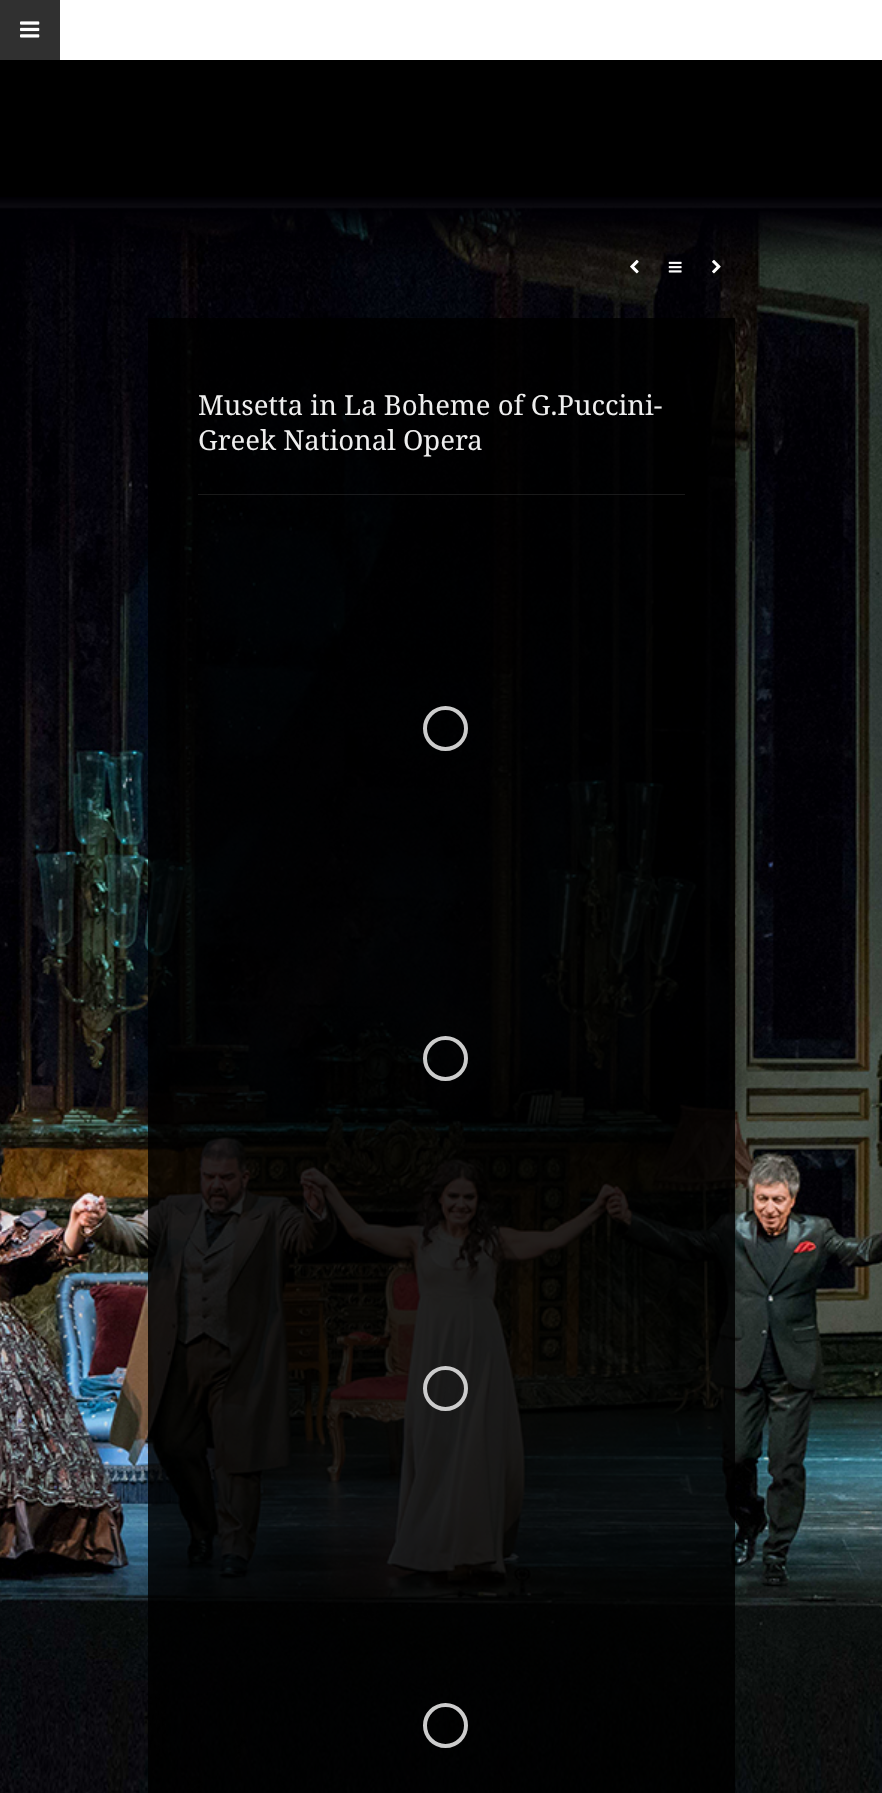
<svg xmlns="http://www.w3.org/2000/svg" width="882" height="1793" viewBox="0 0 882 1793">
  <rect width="100%" height="100%" fill="rgb(0,0,0)"/>
  <rect x="60" y="0" width="822" height="60" fill="rgb(255,255,255)"/>
  <rect x="0" y="0" width="60" height="60" fill="rgb(48,48,48)"/>
  <image x="20" y="21" width="20" height="17" href="pic1.png"/>
  <image x="0" y="197" width="882" height="1596" href="pic2.png"/>
  <image x="630" y="259" width="9" height="15" href="pic3.png"/>
  <image x="668" y="261" width="14" height="12" href="pic4.png"/>
  <image x="712" y="259" width="9" height="15" href="pic5.png"/>
  <rect x="148" y="318" width="587" height="177" fill="rgba(0,0,0,0.85)"/>
  <rect x="198" y="494" width="487" height="1" fill="rgba(255,255,255,0.1)"/>
  <g font-family="Noto Serif" font-size="27.5" fill="rgb(238,238,238)">
    <text>
      <tspan x="198" y="415">Musetta in La Boheme of G.Puccini-</tspan>
      <tspan x="198" y="450">Greek National Opera</tspan>
    </text>
  </g>
  <rect x="148" y="495" width="587" height="1298" fill="rgba(0,0,0,0.85)"/>
  <circle cx="445.5" cy="728.5" r="20.5" fill="none" stroke="rgb(204,204,204)" stroke-width="4"/>
  <circle cx="445.5" cy="1058.5" r="20.5" fill="none" stroke="rgb(204,204,204)" stroke-width="4"/>
  <circle cx="445.5" cy="1388.5" r="20.5" fill="none" stroke="rgb(204,204,204)" stroke-width="4"/>
  <circle cx="445.5" cy="1725.5" r="20.5" fill="none" stroke="rgb(204,204,204)" stroke-width="4"/>
</svg>
